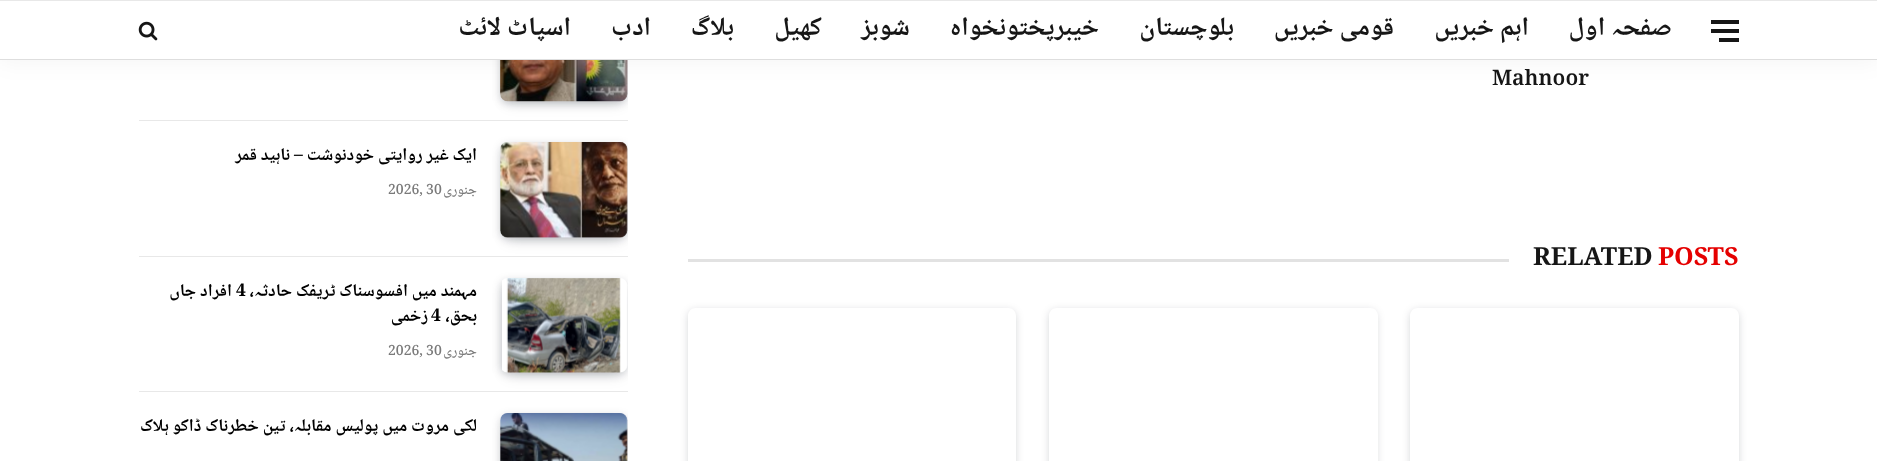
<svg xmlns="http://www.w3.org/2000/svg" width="1877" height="461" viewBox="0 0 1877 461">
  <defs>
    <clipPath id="clip1"><rect x="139" y="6" width="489" height="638"/></clipPath>
    <clipPath id="clip2"><rect x="688" y="69" width="1051" height="119"/></clipPath>
    <clipPath id="clip3"><path d="M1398 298H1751V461H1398ZM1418 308H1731C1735.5 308 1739 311.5 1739 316V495C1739 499.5 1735.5 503 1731 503H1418C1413.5 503 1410 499.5 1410 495V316C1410 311.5 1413.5 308 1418 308Z" clip-rule="evenodd"/></clipPath>
    <clipPath id="clip4"><path d="M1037 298H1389V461H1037ZM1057 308H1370C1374.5 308 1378 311.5 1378 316V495C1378 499.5 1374.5 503 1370 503H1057C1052.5 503 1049 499.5 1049 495V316C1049 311.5 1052.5 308 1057 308Z" clip-rule="evenodd"/></clipPath>
    <clipPath id="clip5"><path d="M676 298H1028V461H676ZM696 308H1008C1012.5 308 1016 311.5 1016 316V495C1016 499.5 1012.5 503 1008 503H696C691.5 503 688 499.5 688 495V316C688 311.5 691.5 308 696 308Z" clip-rule="evenodd"/></clipPath>
  </defs>
  <rect width="100%" height="100%" fill="rgb(255,255,255)"/>
  <g clip-path="url(#clip1)">
    <rect x="508" y="21" width="112" height="80" fill="rgba(7,10,25,0.2)" filter="blur(7.5px)"/>
    <rect x="501" y="10" width="125" height="93" rx="6" fill="rgba(7,10,25,0.2)" filter="blur(4px)"/>
  </g>
  <image x="500" y="60" width="128" height="42" href="pic2.png"/>
  <rect x="0" y="0" width="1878" height="60" fill="rgba(0,0,0,0.05)" filter="blur(12.5px)"/>
  <rect x="0" y="1" width="1877" height="58" fill="rgb(255,255,255)"/>
  <rect x="0" y="0" width="1877" height="1" fill="rgb(232,232,232)"/>
  <rect x="0" y="59" width="1877" height="1" fill="rgb(222,222,222)"/>
  <rect x="1719" y="38" width="20" height="4" fill="rgb(22,22,22)"/>
  <rect x="1711" y="20" width="28" height="4" fill="rgb(22,22,22)"/>
  <rect x="1711" y="29" width="28" height="4" fill="rgb(22,22,22)"/>
  <g font-family="Noto Naskh Arabic" font-size="26.25" font-weight="bold" direction="rtl" fill="rgb(22,22,22)">
    <text x="1672" y="35">صفحہ اول</text>
    <text x="1529" y="35">اہم خبریں</text>
    <text x="1394" y="35">قومی خبریں</text>
    <text x="1234" y="35">بلوچستان</text>
    <text x="1099" y="35">خیبرپختونخواہ</text>
    <text x="910" y="35">شوبز</text>
    <text x="822" y="35">کھیل</text>
    <text x="734" y="35">بلاگ</text>
    <text x="651" y="35">ادب</text>
    <text x="571" y="35">اسپاٹ لائٹ</text>
  </g>
  <image x="138" y="21" width="20" height="20" href="pic1.png"/>
  <g clip-path="url(#clip2)">
    <text x="1492" y="85" font-family="Noto Naskh Arabic" font-size="21.25" font-weight="600" fill="rgb(22,22,22)">Mahnoor</text>
  </g>
  <text x="1658" y="265" font-family="Noto Naskh Arabic" font-size="25" font-weight="bold" fill="rgb(229,0,0)">POSTS</text>
  <text x="1533" y="265" font-family="Noto Naskh Arabic" font-size="25" font-weight="bold" fill="rgb(22,22,22)">RELATED</text>
  <rect x="688" y="259" width="821" height="3" fill="rgb(226,226,226)"/>
  <g clip-path="url(#clip3)">
    <rect x="1411" y="311" width="327" height="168" rx="6" fill="rgba(7,10,25,0.2)" filter="blur(4px)"/>
  </g>
  <g clip-path="url(#clip4)">
    <rect x="1050" y="311" width="326" height="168" rx="6" fill="rgba(7,10,25,0.2)" filter="blur(4px)"/>
  </g>
  <g clip-path="url(#clip5)">
    <rect x="689" y="311" width="326" height="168" rx="6" fill="rgba(7,10,25,0.2)" filter="blur(4px)"/>
  </g>
  <rect x="139" y="120" width="489" height="1" fill="rgb(232,232,232)"/>
  <g clip-path="url(#clip1)">
    <rect x="508" y="156" width="112" height="82" fill="rgba(7,10,25,0.2)" filter="blur(7.5px)"/>
    <rect x="501" y="145" width="125" height="94" rx="6" fill="rgba(7,10,25,0.2)" filter="blur(4px)"/>
  </g>
  <image x="500" y="142" width="128" height="96" href="pic3.png"/>
  <text x="477" y="160" font-family="Noto Naskh Arabic" font-size="17.5" font-weight="bold" direction="rtl" fill="rgb(0,0,0)">ایک غیر روایتی خودنوشت – ناہید قمر</text>
  <text x="477" y="194" font-family="Noto Naskh Arabic" font-size="14" font-weight="500" direction="rtl" fill="rgb(122,122,122)">جنوری</text>
  <text x="388" y="194" font-family="Noto Naskh Arabic" font-size="14" font-weight="500" fill="rgb(122,122,122)">2026, 30</text>
  <rect x="139" y="256" width="489" height="1" fill="rgb(232,232,232)"/>
  <g clip-path="url(#clip1)">
    <rect x="508" y="293" width="112" height="80" fill="rgba(7,10,25,0.2)" filter="blur(7.5px)"/>
    <rect x="501" y="281" width="125" height="93" rx="6" fill="rgba(7,10,25,0.2)" filter="blur(4px)"/>
  </g>
  <image x="502" y="278" width="126" height="95" href="pic4.png"/>
  <text x="477" y="296" font-family="Noto Naskh Arabic" font-size="17.5" font-weight="bold" direction="rtl" fill="rgb(0,0,0)">مہمند میں افسوسناک ٹریفک حادثہ،</text>
  <text x="236" y="296" font-family="Noto Naskh Arabic" font-size="17.5" font-weight="bold" fill="rgb(0,0,0)">4</text>
  <g font-family="Noto Naskh Arabic" font-size="17.5" font-weight="bold" direction="rtl" fill="rgb(0,0,0)">
    <text x="232" y="296">افراد جاں</text>
    <text x="477" y="321">بحق،</text>
  </g>
  <text x="431" y="321" font-family="Noto Naskh Arabic" font-size="17.5" font-weight="bold" fill="rgb(0,0,0)">4</text>
  <text x="428" y="321" font-family="Noto Naskh Arabic" font-size="17.5" font-weight="bold" direction="rtl" fill="rgb(0,0,0)">زخمی</text>
  <text x="477" y="355" font-family="Noto Naskh Arabic" font-size="14" font-weight="500" direction="rtl" fill="rgb(122,122,122)">جنوری</text>
  <text x="388" y="355" font-family="Noto Naskh Arabic" font-size="14" font-weight="500" fill="rgb(122,122,122)">2026, 30</text>
  <rect x="139" y="391" width="489" height="1" fill="rgb(232,232,232)"/>
  <g clip-path="url(#clip1)">
    <rect x="508" y="428" width="112" height="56" fill="rgba(7,10,25,0.2)" filter="blur(7.5px)"/>
    <rect x="501" y="416" width="125" height="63" rx="6" fill="rgba(7,10,25,0.2)" filter="blur(4px)"/>
  </g>
  <image x="500" y="413" width="128" height="48" href="pic5.png"/>
  <text x="477" y="431" font-family="Noto Naskh Arabic" font-size="17.5" font-weight="bold" direction="rtl" fill="rgb(0,0,0)">لکی مروت میں پولیس مقابلہ، تین خطرناک ڈاکو ہلاک</text>
</svg>
